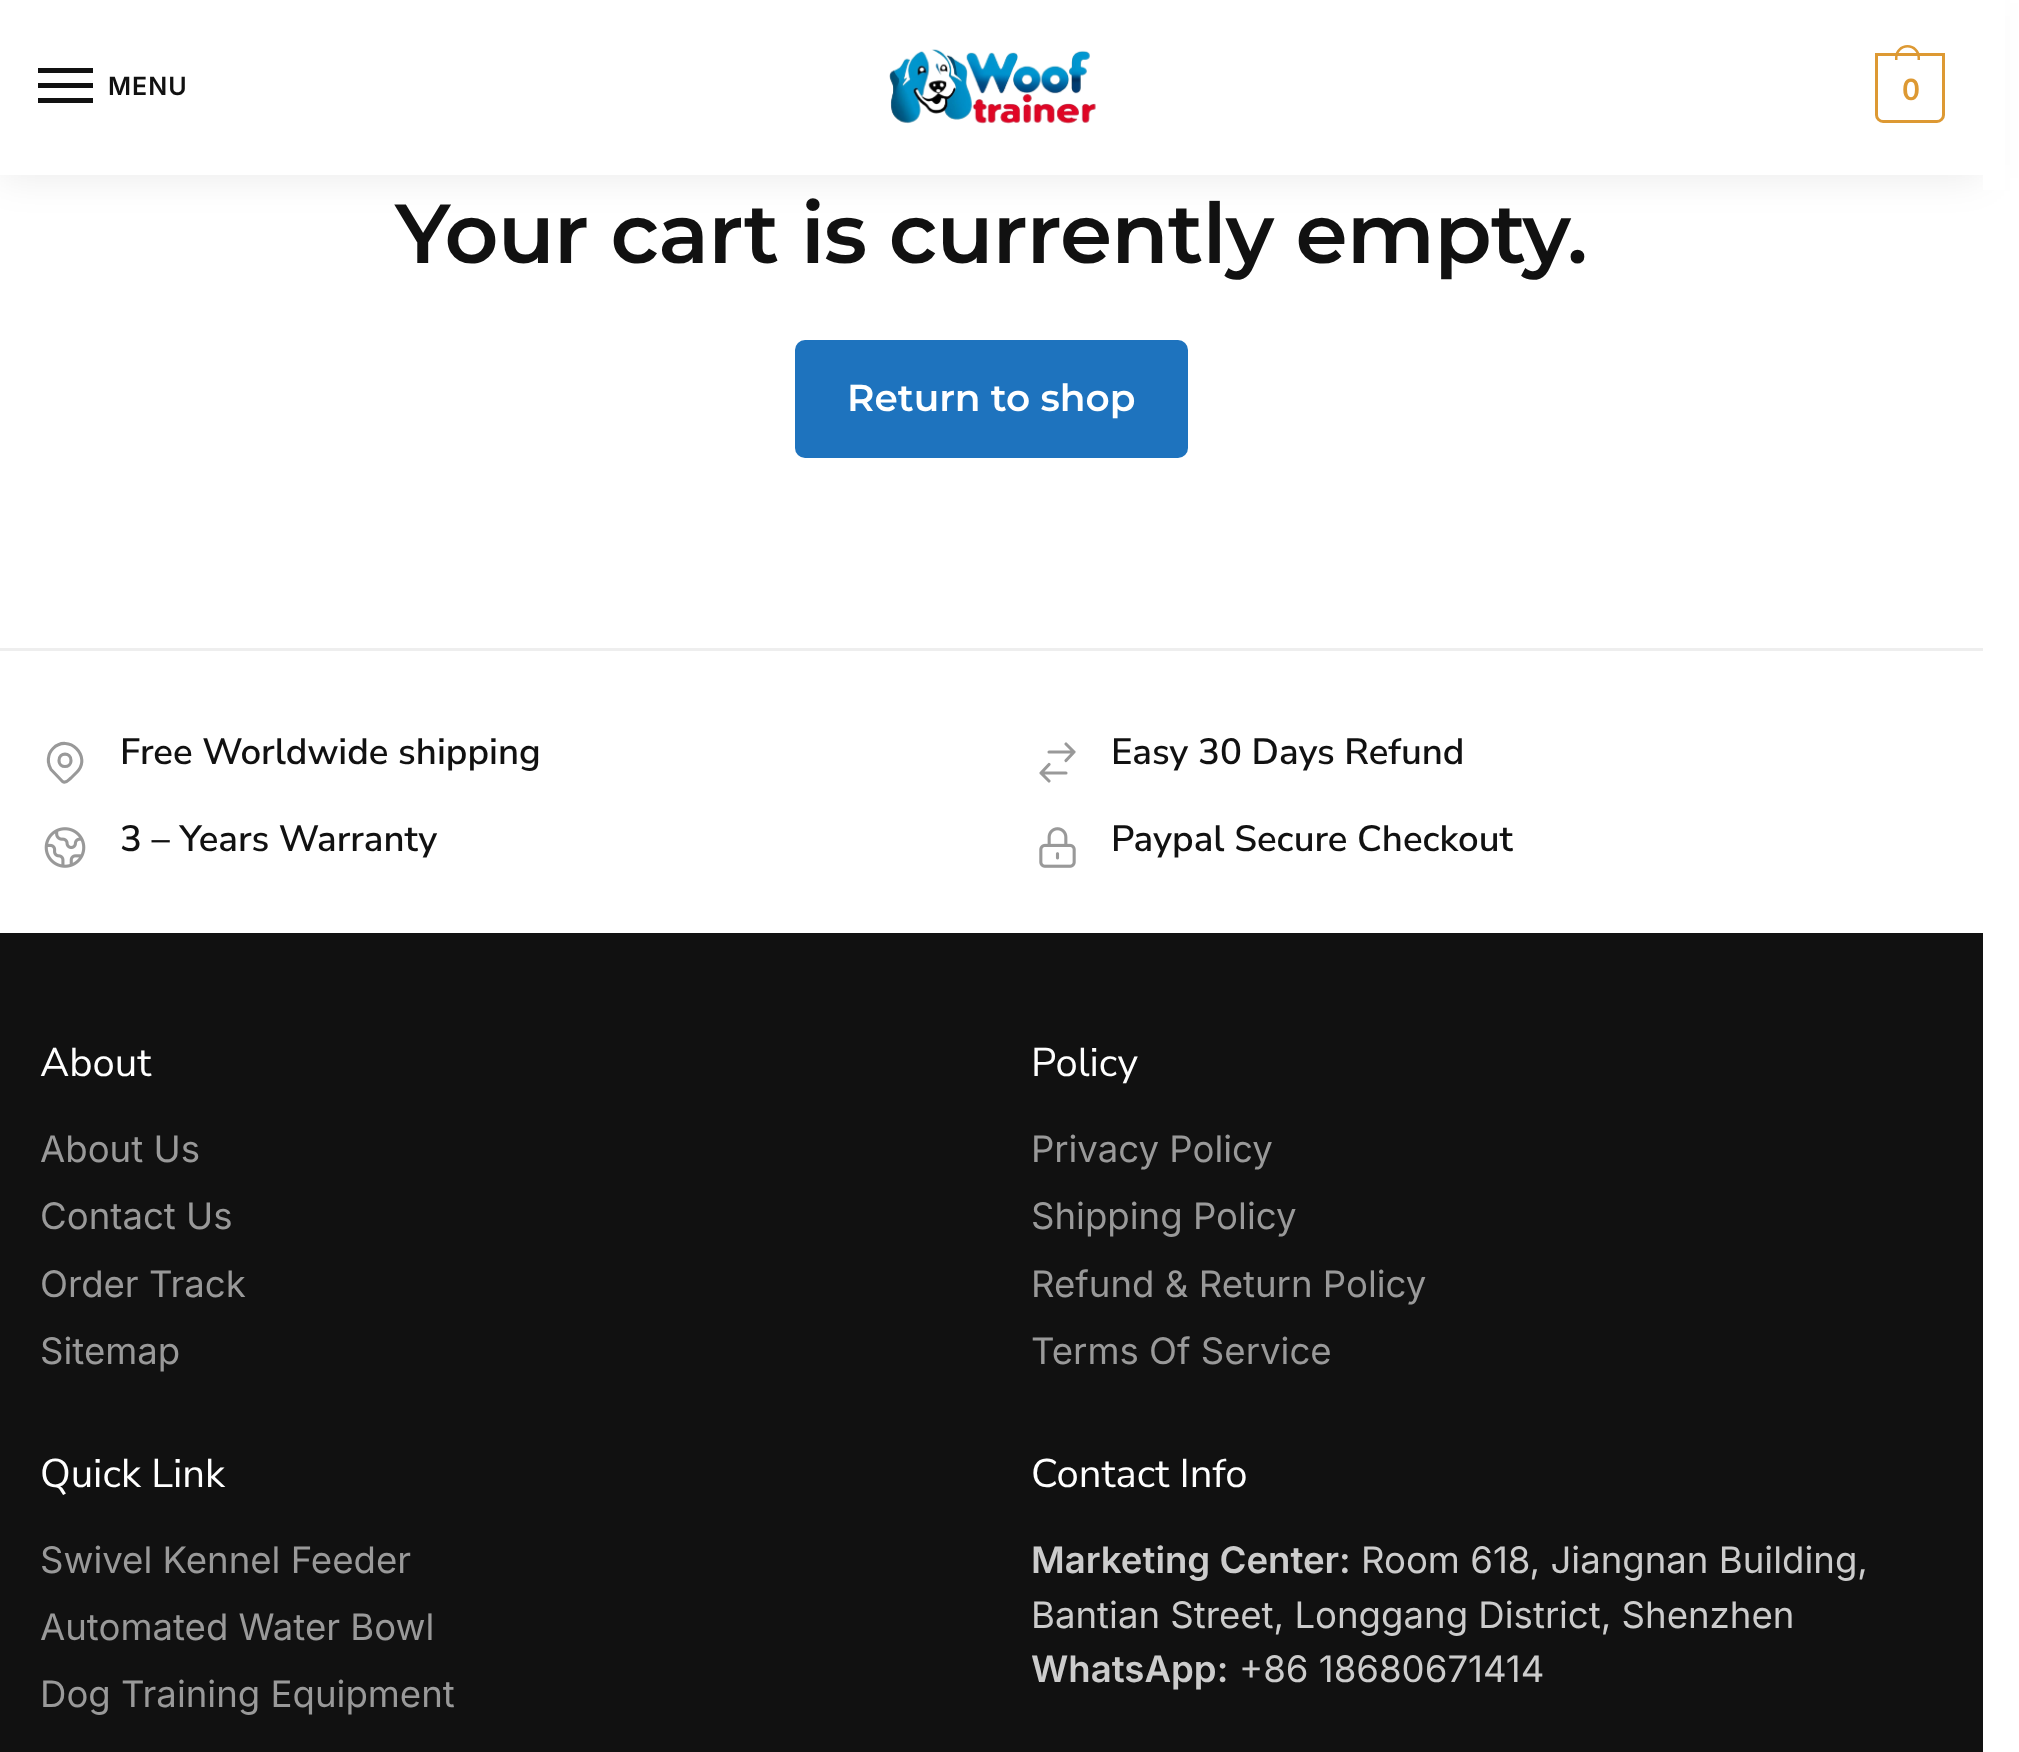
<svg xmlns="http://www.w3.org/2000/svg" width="2019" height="1752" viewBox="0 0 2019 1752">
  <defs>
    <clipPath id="clip1"><path d="M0 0H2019V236H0ZM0 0H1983V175H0Z" clip-rule="evenodd"/></clipPath>
  </defs>
  <rect width="100%" height="100%" fill="rgb(255,255,255)"/>
  <g clip-path="url(#clip1)">
    <rect x="0" y="3" width="1983" height="175" fill="rgba(0,0,0,0.08)" filter="blur(19px)"/>
  </g>
  <rect x="38" y="68" width="55" height="5" fill="rgb(17,17,17)"/>
  <rect x="38" y="83" width="55" height="5" fill="rgb(17,17,17)"/>
  <text x="108" y="95" font-family="Inter" font-size="25" font-weight="600" letter-spacing="1" fill="rgb(17,17,17)">MENU</text>
  <rect x="38" y="98" width="55" height="5" fill="rgb(17,17,17)"/>
  <image x="889" y="49" width="207" height="75" href="pic1.png"/>
  <path d="M1876.5 54.5H1943.5V115C1943.5 118.5 1940.5 121.5 1937 121.5H1883C1879.5 121.5 1876.5 118.5 1876.5 115Z" fill="none" stroke="rgb(221,153,51)" stroke-width="3"/>
  <path d="M1907.5 45C1914.5 45 1920 50.5 1920 57.5V60H1895V57.5C1895 50.5 1900.5 45 1907.5 45ZM1907.5 47.5C1913 47.5 1917.5 52 1917.5 57.5V60H1897.5V57.5C1897.5 52 1902 47.5 1907.5 47.5Z" fill="rgb(221,153,51)" fill-rule="evenodd"/>
  <text x="1902" y="100" font-family="Nunito Sans" font-size="30" font-weight="bold" letter-spacing="-2" fill="rgb(221,153,51)">0</text>
  <rect x="1983" y="0" width="22" height="190" fill="rgb(255,255,255)"/>
  <text x="395" y="263" font-family="Montserrat" font-size="83.75" font-weight="600" letter-spacing="-0.85" fill="rgb(17,17,17)">Your cart is currently empty.</text>
  <rect x="795" y="340" width="393" height="118" rx="10" fill="rgb(30,115,190)"/>
  <text x="847" y="411" font-family="Montserrat" font-size="37.5" font-weight="600" fill="rgb(255,255,255)">Return to shop</text>
  <rect x="0" y="648" width="1983" height="3" fill="rgb(238,238,238)"/>
  <path d="M77 772L71 778C68.5 780 66 784 62.5 781.5L51 769.5C47 763 47.5 754 53 748.5C68.5 733 92 756.5 77 772ZM71 760.5C71 768.5 59 768.5 59 760.5C59 752 71 752 71 760.5Z" fill="none" stroke="rgb(153,153,153)" stroke-width="3.1" stroke-linecap="round" stroke-linejoin="round"/>
  <text x="120" y="764" font-family="Nunito Sans" font-size="36.6" font-weight="600" fill="rgb(17,17,17)">Free Worldwide shipping</text>
  <path d="M1049 752H1074M1074 752L1066 744M1074 752L1066 760.5M1066 773H1041M1041 773L1049 781M1041 773L1049 764.5" fill="none" stroke="rgb(153,153,153)" stroke-width="3.1" stroke-linecap="round" stroke-linejoin="round"/>
  <text x="1111" y="764" font-family="Nunito Sans" font-size="36.6" font-weight="600" fill="rgb(17,17,17)">Easy 30 Days Refund</text>
  <image x="44" y="827" width="42" height="41" href="pic2.png"/>
  <text x="120" y="851" font-family="Nunito Sans" font-size="36.6" font-weight="600" fill="rgb(17,17,17)">3 – Years Warranty</text>
  <image x="1039" y="827" width="37" height="41" href="pic3.png"/>
  <text x="1111" y="851" font-family="Nunito Sans" font-size="36.6" font-weight="600" fill="rgb(17,17,17)">Paypal Secure Checkout</text>
  <rect x="0" y="933" width="1983" height="819" fill="rgb(17,17,17)"/>
  <text x="40" y="1076" font-family="Nunito Sans" font-size="40" fill="rgb(255,255,255)">About</text>
  <g font-family="Inter" font-size="36.6" fill="rgb(153,153,153)">
    <text>
      <tspan x="40" y="1162">About Us</tspan>
      <tspan x="40" y="1229">Contact Us</tspan>
      <tspan x="40" y="1297">Order Track</tspan>
      <tspan x="40" y="1364">Sitemap</tspan>
    </text>
  </g>
  <text x="1031" y="1076" font-family="Nunito Sans" font-size="40" fill="rgb(255,255,255)">Policy</text>
  <g font-family="Inter" font-size="36.6" fill="rgb(153,153,153)">
    <text>
      <tspan x="1031" y="1162">Privacy Policy</tspan>
      <tspan x="1031" y="1229">Shipping Policy</tspan>
      <tspan x="1031" y="1297">Refund &amp; Return Policy</tspan>
      <tspan x="1031" y="1364">Terms Of Service</tspan>
    </text>
  </g>
  <text x="40" y="1487" font-family="Nunito Sans" font-size="40" fill="rgb(255,255,255)">Quick Link</text>
  <g font-family="Inter" font-size="36.6" fill="rgb(153,153,153)">
    <text>
      <tspan x="40" y="1573">Swivel Kennel Feeder</tspan>
      <tspan x="40" y="1640">Automated Water Bowl</tspan>
      <tspan x="40" y="1707">Dog Training Equipment</tspan>
    </text>
  </g>
  <text x="1031" y="1487" font-family="Nunito Sans" font-size="40" fill="rgb(255,255,255)">Contact Info</text>
  <text x="1031" y="1573" font-family="Inter" font-size="36.6" font-weight="600" fill="rgb(204,204,204)">Marketing Center:</text>
  <g font-family="Inter" font-size="36.6" fill="rgb(204,204,204)">
    <text x="1361" y="1573">Room 618, Jiangnan Building,</text>
    <text x="1031" y="1628">Bantian Street, Longgang District, Shenzhen</text>
  </g>
  <text x="1031" y="1682" font-family="Inter" font-size="36.6" font-weight="600" fill="rgb(204,204,204)">WhatsApp:</text>
  <text x="1239" y="1682" font-family="Inter" font-size="36.6" fill="rgb(204,204,204)">+86 18680671414</text>
</svg>
